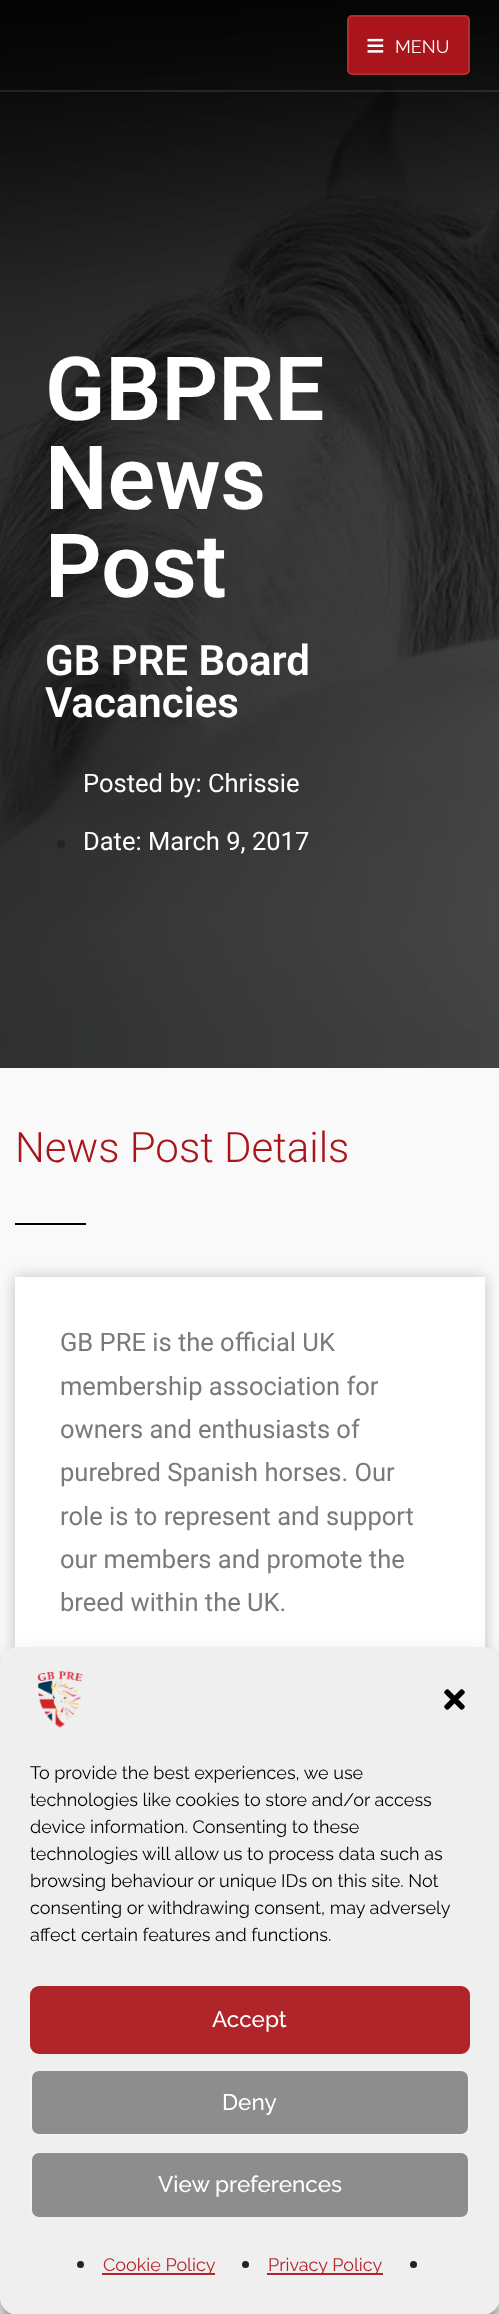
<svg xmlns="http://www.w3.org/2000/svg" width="499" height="2314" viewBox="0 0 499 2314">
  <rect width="100%" height="100%" fill="rgb(249,249,249)"/>
  <image x="0" y="0" width="499" height="1068" href="pic2.png"/>
  <rect x="0" y="90" width="499" height="2" fill="rgba(255,255,255,0.1)"/>
  <rect x="347" y="15" width="123" height="60" rx="5" fill="rgb(170,21,27)"/>
  <rect x="348" y="16" width="121" height="58" rx="4" fill="none" stroke="rgba(255,255,255,0.1)" stroke-width="2"/>
  <image x="367" y="38" width="17" height="15" href="pic1.png"/>
  <text x="395" y="53" font-family="Raleway" font-size="18" fill="rgb(255,255,255)">MENU</text>
  <g font-family="Roboto" font-size="88.5" font-weight="600" fill="rgb(255,255,255)">
    <text>
      <tspan x="45" y="420">GBPRE</tspan>
      <tspan x="45" y="509">News</tspan>
      <tspan x="45" y="597">Post</tspan>
    </text>
  </g>
  <g font-family="Roboto" font-size="42" font-weight="600" fill="rgb(255,255,255)">
    <text>
      <tspan x="45" y="675">GB PRE Board</tspan>
      <tspan x="45" y="717">Vacancies</tspan>
    </text>
  </g>
  <text x="83" y="792" font-family="Roboto" font-size="25.5" fill="rgb(255,255,255)">Posted by: Chrissie</text>
  <circle cx="61" cy="844" r="4" fill="rgb(35,35,35)"/>
  <text x="83" y="850" font-family="Roboto" font-size="25.5" fill="rgb(255,255,255)">Date: March 9, 2017</text>
  <text x="15" y="1162" font-family="Roboto" font-size="42" font-weight="300" fill="rgb(170,21,27)">News Post Details</text>
  <rect x="15" y="1223" width="71" height="2" fill="rgb(0,0,0)"/>
  <rect x="15" y="1277" width="470" height="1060" fill="rgba(0,0,0,0.22)" filter="blur(7.5px)"/>
  <rect x="15" y="1277" width="470" height="371" fill="rgb(255,255,255)"/>
  <g font-family="Roboto" font-size="25.5" fill="rgb(122,122,122)">
    <text>
      <tspan x="60" y="1351">GB PRE is the official UK</tspan>
      <tspan x="60" y="1395">membership association for</tspan>
      <tspan x="60" y="1438">owners and enthusiasts of</tspan>
      <tspan x="60" y="1481">purebred Spanish horses. Our</tspan>
      <tspan x="60" y="1525">role is to represent and support</tspan>
      <tspan x="60" y="1568">our members and promote the</tspan>
      <tspan x="60" y="1611">breed within the UK.</tspan>
    </text>
  </g>
  <rect x="0" y="1656" width="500" height="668" rx="18" fill="rgba(0,0,0,0.23)" filter="blur(4.5px)"/>
  <rect x="0" y="1662" width="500" height="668" rx="18" fill="rgba(0,0,0,0.19)" filter="blur(15px)"/>
  <rect x="0" y="1647" width="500" height="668" rx="18" fill="rgb(239,239,239)"/>
  <image x="37" y="1671" width="46" height="57" href="pic3.png"/>
  <image x="444" y="1689" width="21" height="21" href="pic4.png"/>
  <g font-family="Raleway" font-size="18" fill="rgb(0,0,0)">
    <text>
      <tspan x="30" y="1779">To provide the best experiences, we use</tspan>
      <tspan x="30" y="1806">technologies like cookies to store and/or access</tspan>
      <tspan x="30" y="1833">device information. Consenting to these</tspan>
      <tspan x="30" y="1860">technologies will allow us to process data such as</tspan>
      <tspan x="30" y="1887">browsing behaviour or unique IDs on this site. Not</tspan>
      <tspan x="30" y="1914">consenting or withdrawing consent, may adversely</tspan>
      <tspan x="30" y="1941">affect certain features and functions.</tspan>
    </text>
  </g>
  <rect x="31" y="1987" width="438" height="66" rx="8" fill="rgb(176,37,42)" stroke="rgb(176,37,42)" stroke-width="2"/>
  <text x="212" y="2027" font-family="Raleway" font-size="22.5" font-weight="500" fill="rgb(255,255,255)">Accept</text>
  <rect x="31" y="2070" width="438" height="65" rx="8" fill="rgb(142,141,141)" stroke="rgb(242,242,242)" stroke-width="2"/>
  <text x="222" y="2110" font-family="Raleway" font-size="22.5" font-weight="500" fill="rgb(255,255,255)">Deny</text>
  <rect x="31" y="2152" width="438" height="66" rx="8" fill="rgb(142,141,141)" stroke="rgb(242,242,242)" stroke-width="2"/>
  <text x="158" y="2192" font-family="Raleway" font-size="22.5" font-weight="500" fill="rgb(255,255,255)">View preferences</text>
  <circle cx="80.5" cy="2264.5" r="3.5" fill="rgb(35,35,35)"/>
  <rect x="102" y="2273" width="113" height="2" fill="rgb(176,37,42)"/>
  <text x="103" y="2271" font-family="Raleway" font-size="18" fill="rgb(176,37,42)">Cookie Policy</text>
  <circle cx="245.5" cy="2264.5" r="3.5" fill="rgb(35,35,35)"/>
  <rect x="267" y="2273" width="116" height="2" fill="rgb(176,37,42)"/>
  <text x="268" y="2271" font-family="Raleway" font-size="18" fill="rgb(176,37,42)">Privacy Policy</text>
  <circle cx="413.5" cy="2264.5" r="3.5" fill="rgb(35,35,35)"/>
</svg>
